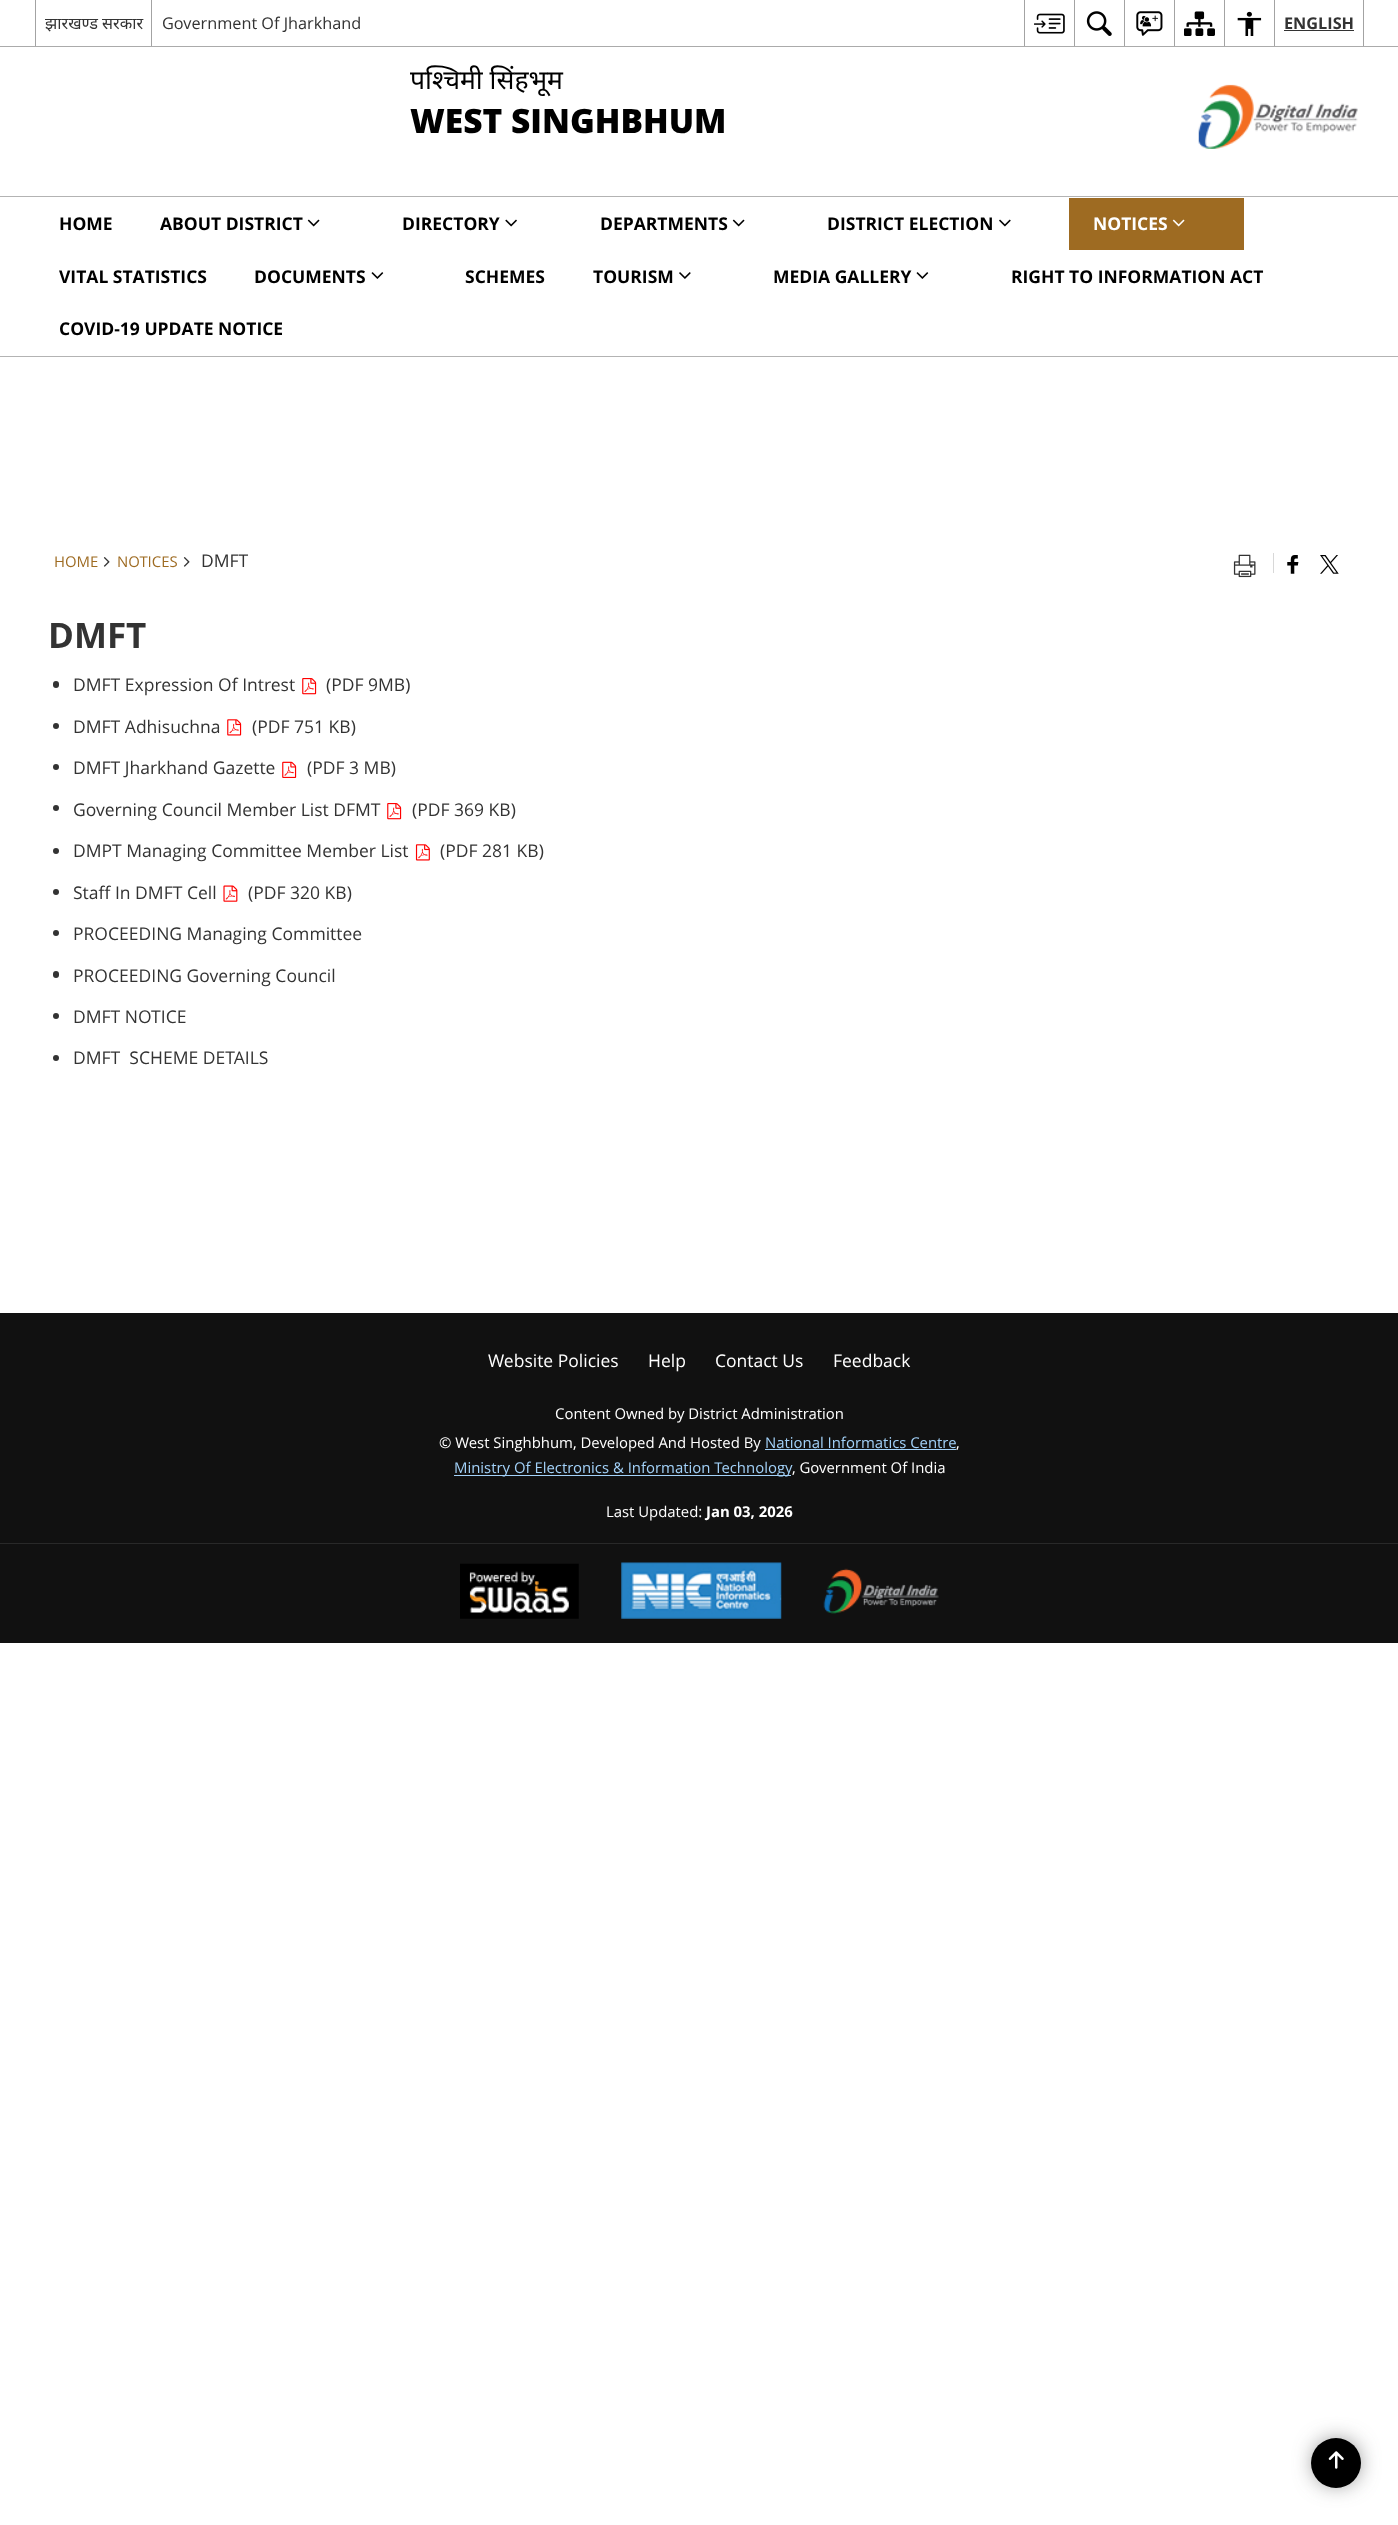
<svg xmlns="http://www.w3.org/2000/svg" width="1398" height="2525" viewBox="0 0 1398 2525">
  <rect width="100%" height="100%" fill="rgb(255,255,255)"/>
  <rect x="0" y="46" width="1398" height="1" fill="rgb(171,171,171)"/>
  <rect x="35" y="0" width="1" height="46" fill="rgb(163,163,163)"/>
  <text x="45" y="29" font-family="Noto Sans" font-size="16.25" fill="rgb(51,51,51)">झारखण्ड सरकार</text>
  <rect x="151" y="0" width="1" height="46" fill="rgb(163,163,163)"/>
  <text x="162" y="29" font-family="Open Sans" font-size="16.25" fill="rgb(51,51,51)">Government Of Jharkhand</text>
  <rect x="1024" y="0" width="1" height="46" fill="rgb(163,163,163)"/>
  <image x="1034" y="13" width="31" height="21" href="pic1.png"/>
  <rect x="1074" y="0" width="1" height="46" fill="rgb(163,163,163)"/>
  <image x="1086" y="11" width="26" height="25" href="pic2.png"/>
  <rect x="1124" y="0" width="1" height="46" fill="rgb(163,163,163)"/>
  <image x="1136" y="11" width="27" height="25" href="pic3.png"/>
  <rect x="1174" y="0" width="1" height="46" fill="rgb(163,163,163)"/>
  <image x="1184" y="11" width="31" height="25" href="pic4.png"/>
  <rect x="1224" y="0" width="1" height="46" fill="rgb(163,163,163)"/>
  <image x="1237" y="11" width="25" height="25" href="pic5.png"/>
  <rect x="1363" y="0" width="1" height="46" fill="rgb(163,163,163)"/>
  <rect x="1274" y="0" width="1" height="46" fill="rgb(163,163,163)"/>
  <text x="1284" y="29" font-family="Open Sans" font-size="16.25" font-weight="bold" fill="rgb(51,51,51)">ENGLISH</text>
  <rect x="1284" y="30" width="70" height="1" fill="rgb(51,51,51)"/>
  <text x="410" y="89" font-family="Noto Sans" font-size="26.5" fill="rgb(0,0,0)">पश्चिमी सिंहभूम</text>
  <text x="410" y="133" font-family="Open Sans" font-size="33.5" font-weight="800" fill="rgb(0,0,0)">WEST SINGHBHUM</text>
  <image x="1198" y="84" width="160" height="65" href="pic6.png"/>
  <rect x="0" y="196" width="1398" height="1" fill="rgb(179,179,179)"/>
  <rect x="0" y="356" width="1398" height="1" fill="rgb(179,179,179)"/>
  <g font-family="Open Sans" font-size="17.5" font-weight="bold" fill="rgb(0,0,0)">
    <text x="59" y="230">HOME</text>
    <text x="160" y="230">ABOUT DISTRICT</text>
  </g>
  <image x="307" y="219" width="13" height="8" href="pic7.png"/>
  <text x="402" y="230" font-family="Open Sans" font-size="17.5" font-weight="bold" fill="rgb(0,0,0)">DIRECTORY</text>
  <image x="505" y="219" width="12" height="8" href="pic8.png"/>
  <text x="600" y="230" font-family="Open Sans" font-size="17.5" font-weight="bold" fill="rgb(0,0,0)">DEPARTMENTS</text>
  <image x="732" y="219" width="13" height="8" href="pic7.png"/>
  <text x="827" y="230" font-family="Open Sans" font-size="17.5" font-weight="bold" fill="rgb(0,0,0)">DISTRICT ELECTION</text>
  <image x="999" y="219" width="12" height="8" href="pic9.png"/>
  <rect x="1069" y="198" width="175" height="52" fill="rgb(158,107,34)"/>
  <text x="1093" y="230" font-family="Open Sans" font-size="17.5" font-weight="bold" fill="rgb(255,255,255)">NOTICES</text>
  <image x="1172" y="219" width="13" height="8" href="pic10.png"/>
  <g font-family="Open Sans" font-size="17.5" font-weight="bold" fill="rgb(0,0,0)">
    <text x="59" y="283">VITAL STATISTICS</text>
    <text x="254" y="283">DOCUMENTS</text>
  </g>
  <image x="371" y="272" width="13" height="7" href="pic11.png"/>
  <g font-family="Open Sans" font-size="17.5" font-weight="bold" fill="rgb(0,0,0)">
    <text x="465" y="283">SCHEMES</text>
    <text x="593" y="283">TOURISM</text>
  </g>
  <image x="679" y="272" width="12" height="7" href="pic12.png"/>
  <text x="773" y="283" font-family="Open Sans" font-size="17.5" font-weight="bold" fill="rgb(0,0,0)">MEDIA GALLERY</text>
  <image x="916" y="272" width="13" height="7" href="pic11.png"/>
  <g font-family="Open Sans" font-size="17.5" font-weight="bold" fill="rgb(0,0,0)">
    <text x="1011" y="283">RIGHT TO INFORMATION ACT</text>
    <text x="59" y="335">COVID-19 UPDATE NOTICE</text>
  </g>
  <text x="54" y="567" font-family="Open Sans" font-size="14.9" fill="rgb(158,107,34)">HOME</text>
  <image x="103" y="557" width="7" height="10" href="pic13.png"/>
  <text x="117" y="567" font-family="Open Sans" font-size="14.9" fill="rgb(158,107,34)">NOTICES</text>
  <image x="183" y="557" width="7" height="10" href="pic13.png"/>
  <text x="201" y="567" font-family="Open Sans" font-size="17.5" fill="rgb(51,51,51)">DMFT</text>
  <image x="1233" y="554" width="23" height="24" href="pic14.png"/>
  <rect x="1273" y="553" width="1" height="20" fill="rgb(216,216,216)"/>
  <image x="1287" y="555" width="12" height="19" href="pic15.png"/>
  <image x="1320" y="555" width="19" height="19" href="pic16.png"/>
  <text x="48" y="648" font-family="Open Sans" font-size="35" font-weight="bold" fill="rgb(51,51,51)">DMFT</text>
  <rect x="53" y="681" width="6" height="7" rx="3" fill="rgb(51,51,51)"/>
  <text x="73" y="691" font-family="Open Sans" font-size="17.5" fill="rgb(51,51,51)">DMFT Expression Of Intrest</text>
  <image x="302" y="678" width="15" height="17" href="pic17.png"/>
  <text x="326" y="691" font-family="Open Sans" font-size="17.5" fill="rgb(51,51,51)">(PDF 9MB)</text>
  <circle cx="56" cy="726" r="3" fill="rgb(51,51,51)"/>
  <text x="73" y="733" font-family="Open Sans" font-size="17.5" fill="rgb(51,51,51)">DMFT Adhisuchna</text>
  <image x="227" y="719" width="15" height="17" href="pic18.png"/>
  <text x="252" y="733" font-family="Open Sans" font-size="17.5" fill="rgb(51,51,51)">(PDF 751 KB)</text>
  <circle cx="56" cy="767" r="3" fill="rgb(51,51,51)"/>
  <text x="73" y="774" font-family="Open Sans" font-size="17.5" fill="rgb(51,51,51)">DMFT Jharkhand Gazette</text>
  <image x="282" y="761" width="15" height="17" href="pic19.png"/>
  <text x="307" y="774" font-family="Open Sans" font-size="17.5" fill="rgb(51,51,51)">(PDF 3 MB)</text>
  <circle cx="56" cy="808" r="3" fill="rgb(51,51,51)"/>
  <text x="73" y="816" font-family="Open Sans" font-size="17.5" fill="rgb(51,51,51)">Governing Council Member List DFMT</text>
  <image x="387" y="803" width="15" height="17" href="pic17.png"/>
  <text x="412" y="816" font-family="Open Sans" font-size="17.5" fill="rgb(51,51,51)">(PDF 369 KB)</text>
  <circle cx="56" cy="851" r="3" fill="rgb(51,51,51)"/>
  <text x="73" y="857" font-family="Open Sans" font-size="17.5" fill="rgb(51,51,51)">DMPT Managing Committee Member List</text>
  <image x="415" y="844" width="15" height="17" href="pic20.png"/>
  <text x="440" y="857" font-family="Open Sans" font-size="17.5" fill="rgb(51,51,51)">(PDF 281 KB)</text>
  <circle cx="56" cy="892" r="3" fill="rgb(51,51,51)"/>
  <text x="73" y="899" font-family="Open Sans" font-size="17.5" fill="rgb(51,51,51)">Staff In DMFT Cell</text>
  <image x="223" y="885" width="15" height="17" href="pic21.png"/>
  <text x="248" y="899" font-family="Open Sans" font-size="17.5" fill="rgb(51,51,51)">(PDF 320 KB)</text>
  <circle cx="56" cy="933" r="3" fill="rgb(51,51,51)"/>
  <text x="73" y="940" font-family="Open Sans" font-size="17.5" fill="rgb(51,51,51)">PROCEEDING Managing Committee</text>
  <rect x="53" y="971" width="6" height="7" rx="3" fill="rgb(51,51,51)"/>
  <text x="73" y="982" font-family="Open Sans" font-size="17.5" fill="rgb(51,51,51)">PROCEEDING Governing Council</text>
  <circle cx="56" cy="1016" r="3" fill="rgb(51,51,51)"/>
  <text x="73" y="1023" font-family="Open Sans" font-size="17.5" fill="rgb(51,51,51)">DMFT NOTICE</text>
  <circle cx="56" cy="1058" r="3" fill="rgb(51,51,51)"/>
  <text x="73" y="1064" font-family="Open Sans" font-size="17.5" fill="rgb(51,51,51)" xml:space="preserve">DMFT  SCHEME DETAILS</text>
  <rect x="0" y="1313" width="1398" height="330" fill="rgb(17,17,17)"/>
  <g font-family="Open Sans" font-size="17.5" fill="rgb(255,255,255)">
    <text x="488" y="1367">Website Policies</text>
    <text x="648" y="1367">Help</text>
    <text x="715" y="1367">Contact Us</text>
    <text x="833" y="1367">Feedback</text>
  </g>
  <g font-family="Open Sans" font-size="14.9" fill="rgb(255,255,255)">
    <text x="555" y="1419">Content Owned by District Administration</text>
    <text x="439" y="1448">© West Singhbhum, Developed And Hosted By</text>
  </g>
  <text x="765" y="1448" font-family="Open Sans" font-size="14.9" fill="rgb(163,210,249)">National Informatics Centre</text>
  <rect x="765" y="1449" width="191" height="1" fill="rgb(163,210,249)"/>
  <text x="956" y="1448" font-family="Open Sans" font-size="14.9" fill="rgb(255,255,255)">,</text>
  <rect x="454" y="1475" width="337" height="1" fill="rgb(163,210,249)"/>
  <text x="454" y="1473" font-family="Open Sans" font-size="14.9" fill="rgb(163,210,249)">Ministry Of Electronics &amp; Information Technology</text>
  <g font-family="Open Sans" font-size="14.9" fill="rgb(255,255,255)">
    <text x="792" y="1473">, Government Of India</text>
    <text x="606" y="1517">Last Updated:</text>
  </g>
  <text x="706" y="1517" font-family="Open Sans" font-size="14.9" font-weight="bold" fill="rgb(255,255,255)">Jan 03, 2026</text>
  <rect x="0" y="1543" width="1398" height="1" fill="rgb(41,41,41)"/>
  <image x="460" y="1563" width="119" height="56" href="pic22.png"/>
  <image x="621" y="1562" width="161" height="57" href="pic23.png"/>
  <image x="823" y="1568" width="116" height="46" href="pic24.png"/>
  <rect x="1318" y="2444" width="37" height="37" rx="18.5" fill="rgb(60,60,60)" filter="blur(12px)"/>
  <circle cx="1336" cy="2463" r="25" fill="rgb(0,0,0)"/>
  <image x="1328" y="2451" width="16" height="18" href="pic25.png"/>
</svg>
